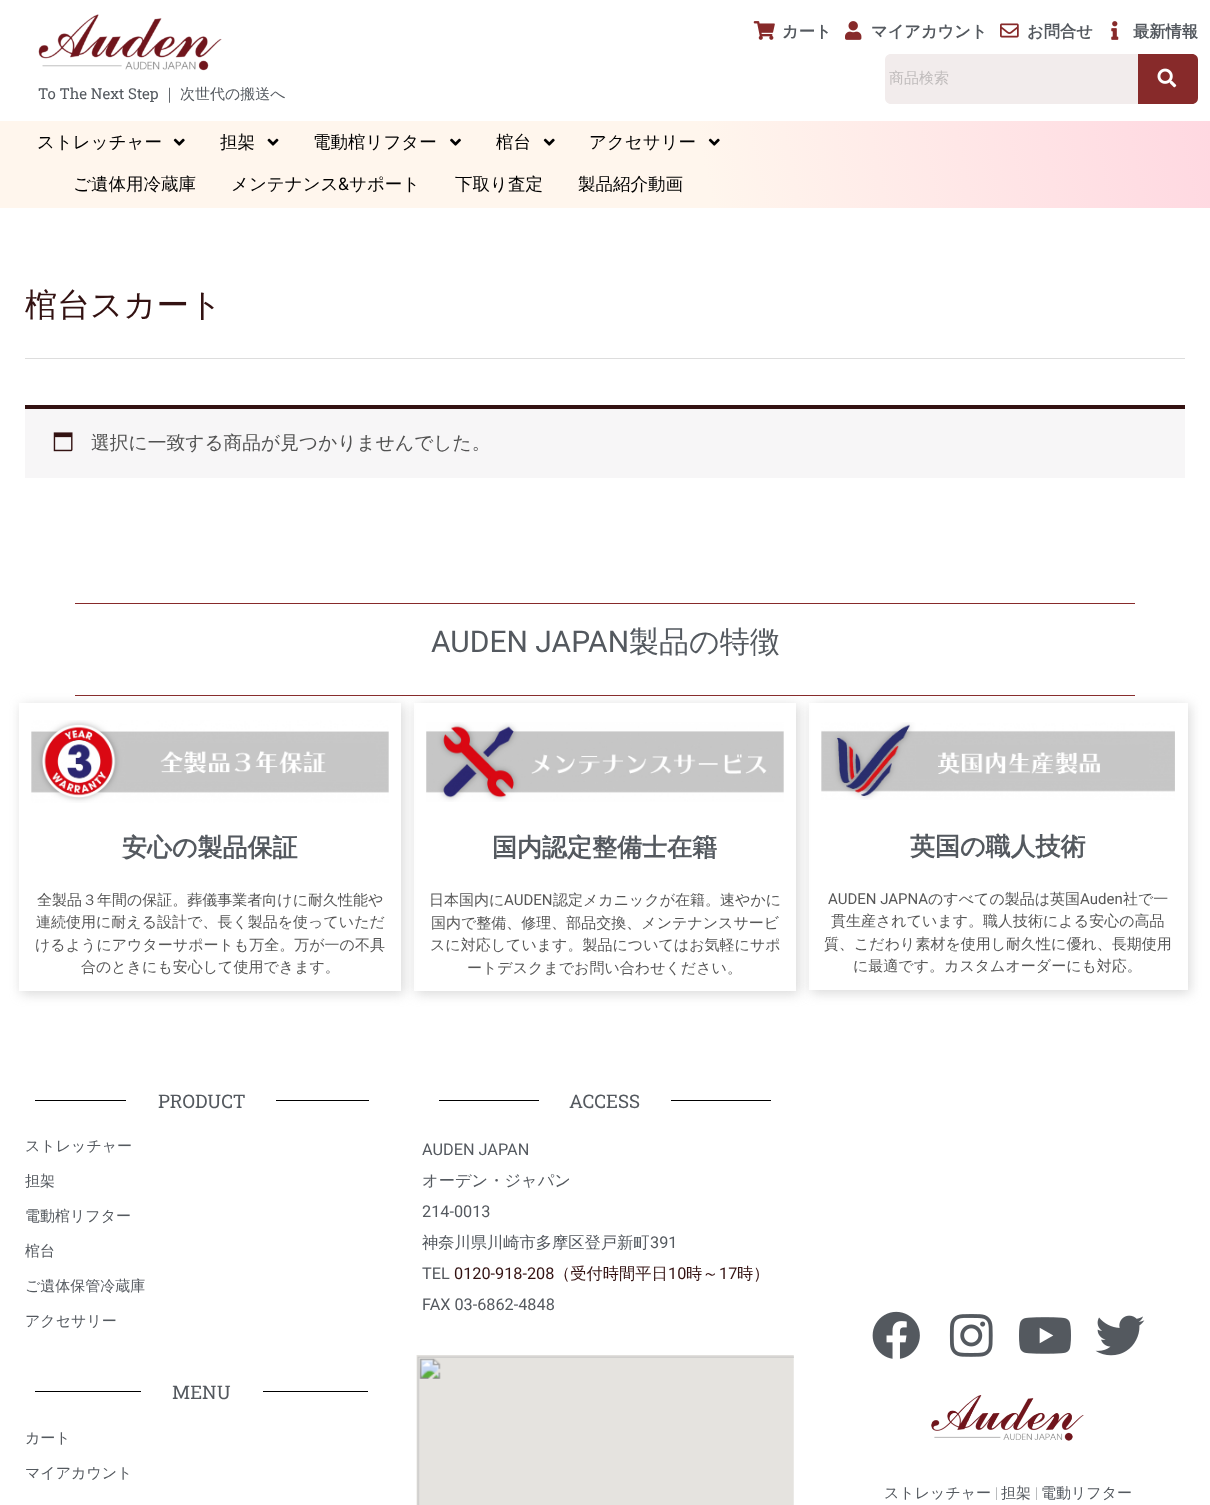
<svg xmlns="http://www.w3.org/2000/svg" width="1210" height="1505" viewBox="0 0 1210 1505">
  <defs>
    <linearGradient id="g1" gradientUnits="userSpaceOnUse" x1="17" y1="289" x2="1193" y2="39"><stop offset="0.58" stop-color="rgb(255,246,237)"/><stop offset="1" stop-color="rgb(255,216,225)"/></linearGradient>
    <clipPath id="clip1"><path d="M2 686H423V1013H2ZM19 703H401V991H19Z" clip-rule="evenodd"/></clipPath>
    <clipPath id="clip2"><path d="M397 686H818V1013H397ZM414 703H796V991H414Z" clip-rule="evenodd"/></clipPath>
    <clipPath id="clip3"><path d="M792 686H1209V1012H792ZM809 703H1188V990H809Z" clip-rule="evenodd"/></clipPath>
  </defs>
  <rect width="100%" height="100%" fill="rgb(255,255,255)"/>
  <image x="753" y="21" width="22" height="19" href="pic1.png"/>
  <text x="782" y="37" font-family="WenQuanYi Zen Hei" font-size="16.25" font-weight="bold" fill="rgb(84,89,95)">カート</text>
  <image x="845" y="21" width="17" height="19" href="pic2.png"/>
  <text x="871" y="37" font-family="WenQuanYi Zen Hei" font-size="16.25" font-weight="bold" fill="rgb(84,89,95)">マイアカウント</text>
  <image x="1000" y="23" width="19" height="15" href="pic3.png"/>
  <text x="1027" y="37" font-family="WenQuanYi Zen Hei" font-size="16.25" font-weight="bold" fill="rgb(84,89,95)">お問合せ</text>
  <image x="1111" y="21" width="8" height="19" href="pic4.png"/>
  <text x="1133" y="37" font-family="WenQuanYi Zen Hei" font-size="16.25" font-weight="bold" fill="rgb(84,89,95)">最新情報</text>
  <path d="M891 54H1138V104H891C887.5 104 885 101.5 885 98V60C885 56.5 887.5 54 891 54Z" fill="rgb(242,236,236)"/>
  <text x="889" y="83" font-family="WenQuanYi Zen Hei" font-size="15" font-weight="500" fill="rgb(192,188,188)">商品検索</text>
  <path d="M1138 54H1192C1195.5 54 1198 56.5 1198 60V98C1198 101.5 1195.5 104 1192 104H1138Z" fill="rgb(135,42,42)"/>
  <image x="1157" y="68" width="20" height="20" href="pic5.png"/>
  <image x="38" y="14" width="184" height="57" href="pic6.png"/>
  <text x="38" y="99" font-family="Roboto Slab" font-size="15" fill="rgb(84,89,95)">To The Next Step</text>
  <g font-family="WenQuanYi Zen Hei" font-size="15" font-weight="500" fill="rgb(84,89,95)">
    <text x="162" y="99">｜</text>
    <text x="180" y="99">次世代の搬送へ</text>
  </g>
  <rect x="0" y="121" width="1210" height="87" fill="url(#g1)"/>
  <text x="37" y="148" font-family="WenQuanYi Zen Hei" font-size="17.5" font-weight="500" fill="rgb(0,0,0)">ストレッチャー</text>
  <image x="173" y="138" width="12" height="8" href="pic7.png"/>
  <text x="220" y="148" font-family="WenQuanYi Zen Hei" font-size="17.5" font-weight="500" fill="rgb(0,0,0)">担架</text>
  <image x="267" y="138" width="12" height="8" href="pic8.png"/>
  <text x="313" y="148" font-family="WenQuanYi Zen Hei" font-size="17.5" font-weight="500" fill="rgb(0,0,0)">電動棺リフター</text>
  <image x="450" y="138" width="11" height="8" href="pic9.png"/>
  <text x="496" y="148" font-family="WenQuanYi Zen Hei" font-size="17.5" font-weight="500" fill="rgb(0,0,0)">棺台</text>
  <image x="543" y="138" width="12" height="8" href="pic7.png"/>
  <text x="589" y="148" font-family="WenQuanYi Zen Hei" font-size="17.5" font-weight="500" fill="rgb(0,0,0)">アクセサリー</text>
  <image x="708" y="138" width="12" height="8" href="pic10.png"/>
  <g font-family="WenQuanYi Zen Hei" font-size="17.5" font-weight="500" fill="rgb(0,0,0)">
    <text x="73" y="190">ご遺体用冷蔵庫</text>
    <text x="231" y="190">メンテナンス</text>
  </g>
  <text x="338" y="190" font-family="Roboto" font-size="17.5" fill="rgb(0,0,0)">&amp;</text>
  <g font-family="WenQuanYi Zen Hei" font-size="17.5" font-weight="500" fill="rgb(0,0,0)">
    <text x="349" y="190">サポート</text>
    <text x="455" y="190">下取り査定</text>
    <text x="578" y="190">製品紹介動画</text>
  </g>
  <rect x="25" y="358" width="1160" height="1" fill="rgb(221,221,221)"/>
  <text x="25" y="316" font-family="WenQuanYi Zen Hei" font-size="32.5" font-weight="500" fill="rgb(51,18,18)">棺台スカート</text>
  <rect x="25" y="409" width="1160" height="69" fill="rgb(247,246,247)"/>
  <rect x="25" y="405" width="1160" height="4" fill="rgb(51,18,18)"/>
  <image x="53" y="432" width="20" height="20" href="pic11.png"/>
  <text x="91" y="449" font-family="WenQuanYi Zen Hei" font-size="18.75" font-weight="500" fill="rgb(81,81,81)">選択に一致する商品が見つかりませんでした。</text>
  <rect x="75" y="603" width="1060" height="1" fill="rgb(135,42,42)"/>
  <rect x="75" y="695" width="1060" height="1" fill="rgb(135,42,42)"/>
  <text x="431" y="652" font-family="Roboto" font-size="30" fill="rgb(84,89,95)">AUDEN JAPAN</text>
  <text x="629" y="652" font-family="WenQuanYi Zen Hei" font-size="30" font-weight="500" fill="rgb(84,89,95)">製品の特徴</text>
  <g clip-path="url(#clip1)">
    <rect x="21" y="705" width="383" height="289" fill="rgba(179,179,179,0.5)" filter="blur(6px)"/>
  </g>
  <image x="31" y="720" width="358" height="83" href="pic12.png"/>
  <text x="122" y="856" font-family="WenQuanYi Zen Hei" font-size="25" font-weight="bold" fill="rgb(84,89,95)">安心の製品保証</text>
  <g font-family="WenQuanYi Zen Hei" font-size="15" font-weight="500" fill="rgb(87,87,87)">
    <text x="37" y="905">全製品３年間の保証。葬儀事業者向けに耐久性能や</text>
    <text x="36" y="927">連続使用に耐える設計で、長く製品を使っていただ</text>
    <text x="35" y="950">けるようにアウターサポートも万全。万が一の不具</text>
    <text x="81" y="972">合のときにも安心して使用できます。</text>
  </g>
  <g clip-path="url(#clip2)">
    <rect x="416" y="705" width="383" height="289" fill="rgba(179,179,179,0.5)" filter="blur(6px)"/>
  </g>
  <image x="426" y="722" width="358" height="80" href="pic13.png"/>
  <text x="492" y="856" font-family="WenQuanYi Zen Hei" font-size="25" font-weight="bold" fill="rgb(84,89,95)">国内認定整備士在籍</text>
  <text x="429" y="905" font-family="WenQuanYi Zen Hei" font-size="15" font-weight="500" fill="rgb(87,87,87)">日本国内に</text>
  <text x="504" y="905" font-family="Roboto" font-size="15" fill="rgb(87,87,87)">AUDEN</text>
  <g font-family="WenQuanYi Zen Hei" font-size="15" font-weight="500" fill="rgb(87,87,87)">
    <text x="553" y="905">認定メカニックが在籍。速やかに</text>
    <text x="431" y="928">国内で整備、修理、部品交換、メンテナンスサービ</text>
    <text x="430" y="950">スに対応しています。製品についてはお気軽にサポ</text>
    <text x="467" y="973">ートデスクまでお問い合わせください。</text>
  </g>
  <g clip-path="url(#clip3)">
    <rect x="811" y="705" width="379" height="288" fill="rgba(179,179,179,0.5)" filter="blur(6px)"/>
  </g>
  <image x="821" y="722" width="354" height="78" href="pic14.png"/>
  <text x="910" y="855" font-family="WenQuanYi Zen Hei" font-size="25" font-weight="bold" fill="rgb(84,89,95)">英国の職人技術</text>
  <text x="828" y="904" font-family="Roboto" font-size="15" fill="rgb(87,87,87)">AUDEN JAPNA</text>
  <text x="928" y="904" font-family="WenQuanYi Zen Hei" font-size="15" font-weight="500" fill="rgb(87,87,87)">のすべての製品は英国</text>
  <text x="1080" y="904" font-family="Roboto" font-size="15" fill="rgb(87,87,87)">Auden</text>
  <g font-family="WenQuanYi Zen Hei" font-size="15" font-weight="500" fill="rgb(87,87,87)">
    <text x="1123" y="904">社で一</text>
    <text x="831" y="926">貫生産されています。職人技術による安心の高品</text>
    <text x="824" y="949">質、こだわり素材を使用し耐久性に優れ、長期使用</text>
    <text x="853" y="971">に最適です。カスタムオーダーにも対応。</text>
  </g>
  <rect x="35" y="1100" width="91" height="1" fill="rgb(0,0,0)"/>
  <text x="158" y="1108" font-family="Roboto Slab" font-size="18.75" fill="rgb(84,89,95)">PRODUCT</text>
  <rect x="276" y="1100" width="93" height="1" fill="rgb(0,0,0)"/>
  <g font-family="WenQuanYi Zen Hei" font-size="15" font-weight="500" fill="rgb(84,89,95)">
    <text x="25" y="1151">ストレッチャー</text>
    <text x="25" y="1186">担架</text>
    <text x="25" y="1221">電動棺リフター</text>
    <text x="25" y="1256">棺台</text>
    <text x="25" y="1291">ご遺体保管冷蔵庫</text>
    <text x="25" y="1326">アクセサリー</text>
  </g>
  <rect x="35" y="1391" width="106" height="1" fill="rgb(0,0,0)"/>
  <text x="172" y="1399" font-family="Roboto Slab" font-size="18.75" fill="rgb(84,89,95)">MENU</text>
  <rect x="263" y="1391" width="105" height="1" fill="rgb(0,0,0)"/>
  <g font-family="WenQuanYi Zen Hei" font-size="15" font-weight="500" fill="rgb(84,89,95)">
    <text x="25" y="1443">カート</text>
    <text x="25" y="1478">マイアカウント</text>
  </g>
  <rect x="439" y="1100" width="100" height="1" fill="rgb(0,0,0)"/>
  <text x="569" y="1108" font-family="Roboto Slab" font-size="18.75" fill="rgb(84,89,95)">ACCESS</text>
  <rect x="671" y="1100" width="100" height="1" fill="rgb(0,0,0)"/>
  <text x="422" y="1155" font-family="Roboto" font-size="16.25" fill="rgb(84,89,95)">AUDEN JAPAN</text>
  <text x="422" y="1186" font-family="WenQuanYi Zen Hei" font-size="16.25" font-weight="500" fill="rgb(84,89,95)">オーデン・ジャパン</text>
  <text x="422" y="1217" font-family="Roboto" font-size="16.25" fill="rgb(84,89,95)">214-0013</text>
  <text x="422" y="1248" font-family="WenQuanYi Zen Hei" font-size="16.25" font-weight="500" fill="rgb(84,89,95)">神奈川県川崎市多摩区登戸新町</text>
  <g font-family="Roboto" font-size="16.25" fill="rgb(84,89,95)">
    <text x="650" y="1248">391</text>
    <text x="422" y="1279">TEL</text>
  </g>
  <text x="454" y="1279" font-family="Roboto" font-size="16.25" fill="rgb(51,18,18)">0120-918-208</text>
  <text x="554" y="1279" font-family="WenQuanYi Zen Hei" font-size="16.25" font-weight="500" fill="rgb(51,18,18)">（受付時間平日</text>
  <text x="668" y="1279" font-family="Roboto" font-size="16.25" fill="rgb(51,18,18)">10</text>
  <text x="686" y="1279" font-family="WenQuanYi Zen Hei" font-size="16.25" font-weight="500" fill="rgb(51,18,18)">時～</text>
  <text x="719" y="1279" font-family="Roboto" font-size="16.25" fill="rgb(51,18,18)">17</text>
  <text x="737" y="1279" font-family="WenQuanYi Zen Hei" font-size="16.25" font-weight="500" fill="rgb(51,18,18)">時）</text>
  <text x="422" y="1310" font-family="Roboto" font-size="16.25" fill="rgb(84,89,95)">FAX 03-6862-4848</text>
  <image x="416" y="1355" width="378" height="150" href="pic15.png"/>
  <image x="872" y="1311" width="48" height="48" href="pic16.png"/>
  <image x="949" y="1314" width="44" height="43" href="pic17.png"/>
  <image x="1019" y="1317" width="52" height="37" href="pic18.png"/>
  <image x="1095" y="1315" width="50" height="41" href="pic19.png"/>
  <image x="931" y="1395" width="153" height="46" href="pic20.png"/>
  <text x="884" y="1498" font-family="WenQuanYi Zen Hei" font-size="15" font-weight="500" fill="rgb(84,89,95)">ストレッチャー</text>
  <text x="995" y="1498" font-family="Roboto" font-size="15" font-weight="100" fill="rgb(84,89,95)">|</text>
  <text x="1001" y="1498" font-family="WenQuanYi Zen Hei" font-size="15" font-weight="500" fill="rgb(84,89,95)">担架</text>
  <text x="1035" y="1498" font-family="Roboto" font-size="15" font-weight="100" fill="rgb(84,89,95)">|</text>
  <text x="1041" y="1498" font-family="WenQuanYi Zen Hei" font-size="15" font-weight="500" fill="rgb(84,89,95)">電動リフター</text>
</svg>
